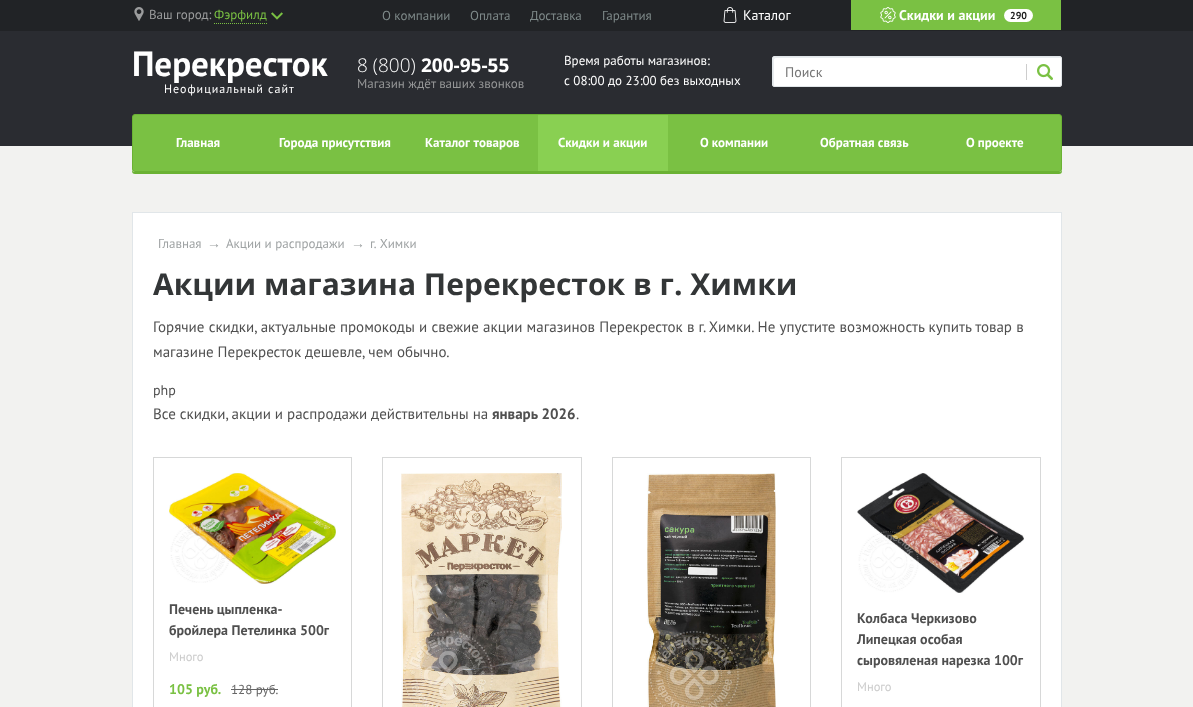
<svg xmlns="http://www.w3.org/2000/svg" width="1193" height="707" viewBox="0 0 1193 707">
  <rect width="100%" height="100%" fill="rgb(242,242,240)"/>
  <rect x="0" y="31" width="1193" height="115" fill="rgb(42,44,49)"/>
  <rect x="0" y="0" width="1193" height="31" fill="rgb(33,35,38)"/>
  <image x="134" y="7" width="10" height="14" href="pic1.png"/>
  <text x="149" y="19" font-family="PT Sans" font-size="13" fill="rgb(155,156,157)">Ваш город:</text>
  <text x="214" y="19" font-family="PT Sans" font-size="13" fill="rgb(122,193,67)">Фэрфилд</text>
  <path d="M214 23.5H267" fill="none" stroke="rgb(122,193,67)" stroke-dasharray="1 1"/>
  <image x="271" y="12" width="12" height="8" href="pic2.png"/>
  <g font-family="PT Sans" font-size="13" fill="rgb(126,137,137)">
    <text x="382" y="20">О компании</text>
    <text x="470" y="20">Оплата</text>
    <text x="530" y="20">Доставка</text>
    <text x="602" y="20">Гарантия</text>
  </g>
  <image x="723" y="7" width="14" height="16" href="pic3.png"/>
  <text x="743" y="20" font-family="PT Sans" font-size="14" fill="rgb(255,255,255)">Каталог</text>
  <rect x="851" y="0" width="210" height="30" fill="rgb(122,193,67)"/>
  <image x="880" y="7" width="16" height="16" href="pic4.png"/>
  <text x="899" y="20" font-family="PT Sans" font-size="14" font-weight="bold" fill="rgb(255,255,255)">Скидки и акции</text>
  <rect x="1004" y="9" width="29" height="13" rx="6.5" fill="rgb(255,255,255)"/>
  <text x="1010" y="19" font-family="PT Sans" font-size="10" font-weight="bold" fill="rgb(28,28,28)">290</text>
  <text x="132" y="76" font-family="PT Sans" font-size="35" font-weight="bold" fill="rgb(255,255,255)">Перекресток</text>
  <text x="164" y="93" font-family="PT Sans" font-size="12" letter-spacing="1" fill="rgb(255,255,255)">Неофициальный сайт</text>
  <text x="357" y="72" font-family="Open Sans" font-size="19" font-weight="300" fill="rgb(255,255,255)">8 (800)</text>
  <text x="421" y="72" font-family="Open Sans" font-size="19" font-weight="bold" fill="rgb(255,255,255)">200-95-55</text>
  <text x="357" y="88" font-family="PT Sans" font-size="13" fill="rgb(149,150,151)">Магазин ждёт ваших звонков</text>
  <g font-family="PT Sans" font-size="13" fill="rgb(255,255,255)">
    <text>
      <tspan x="564" y="65">Время работы магазинов:</tspan>
      <tspan x="564" y="85">с 08:00 до 23:00 без выходных</tspan>
    </text>
  </g>
  <rect x="772" y="56" width="290" height="31" rx="3" fill="rgb(255,255,255)"/>
  <path d="M776 58H1061C1061 58 1060 57 1059 57H775C774 57 773 58 773 59V84C773 85 774 86 774 86V64C774 63 773 58 776 58Z" fill="rgb(233,237,239)"/>
  <rect x="772.5" y="56.5" width="289" height="30" rx="2.5" fill="none" stroke="rgb(225,230,233)"/>
  <text x="785" y="77" font-family="PT Sans" font-size="14" fill="rgb(117,117,117)">Поиск</text>
  <rect x="1026" y="64" width="1" height="16" fill="rgb(205,205,205)"/>
  <image x="1037" y="64" width="16" height="16" href="pic5.png"/>
  <path d="M132 169V171C132 173 133 174 135 174H1059C1061 174 1062 173 1062 171V169C1062 171 1061 172 1059 172H135C133 172 132 171 132 169Z" fill="rgb(107,178,52)"/>
  <rect x="132.5" y="114.5" width="929" height="57" rx="2.5" fill="rgb(122,193,67)" stroke="rgb(107,178,52)"/>
  <g font-family="PT Sans" font-size="13" font-weight="bold" fill="rgb(255,255,255)">
    <text x="176" y="147">Главная</text>
    <text x="279" y="147">Города присутствия</text>
    <text x="425" y="147" word-spacing="1">Каталог товаров</text>
  </g>
  <rect x="538" y="115" width="130" height="56" fill="rgb(137,208,82)"/>
  <g font-family="PT Sans" font-size="13" font-weight="bold" fill="rgb(255,255,255)">
    <text x="558" y="147">Скидки и акции</text>
    <text x="700" y="147">О компании</text>
    <text x="820" y="147">Обратная связь</text>
    <text x="966" y="147">О проекте</text>
  </g>
  <rect x="132.5" y="212.5" width="929" height="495" fill="rgb(255,255,255)" stroke="rgb(225,230,233)"/>
  <text x="158" y="248" font-family="PT Sans" font-size="13" fill="rgb(159,163,164)">Главная</text>
  <text x="207" y="248" font-family="Liberation Serif" font-size="14" fill="rgb(159,163,164)">→</text>
  <text x="226" y="248" font-family="PT Sans" font-size="13" fill="rgb(159,163,164)">Акции и распродажи</text>
  <text x="351" y="248" font-family="Liberation Serif" font-size="14" fill="rgb(159,163,164)">→</text>
  <text x="370" y="248" word-spacing="1" font-family="PT Sans" font-size="13" fill="rgb(159,163,164)">г. Химки</text>
  <text x="153" y="295" font-family="Open Sans" font-size="30" font-weight="bold" fill="rgb(51,54,55)">Акции магазина Перекресток в г. Химки</text>
  <g font-family="PT Sans" font-size="15" fill="rgb(79,79,79)">
    <text>
      <tspan x="153" y="332" word-spacing="0.2">Горячие скидки, актуальные промокоды и свежие акции магазинов Перекресток в г. Химки. Не упустите возможность купить товар в</tspan>
      <tspan x="153" y="357">магазине Перекресток дешевле, чем обычно.</tspan>
    </text>
  </g>
  <text x="153" y="395" font-family="PT Sans" font-size="14" fill="rgb(79,79,79)">php</text>
  <text x="153" y="419" font-family="PT Sans" font-size="15" fill="rgb(79,79,79)">Все скидки, акции и распродажи действительны на</text>
  <text x="492" y="419" font-family="PT Sans" font-size="15" font-weight="bold" fill="rgb(79,79,79)">январь 2026</text>
  <text x="576" y="419" font-family="PT Sans" font-size="15" fill="rgb(79,79,79)">.</text>
  <rect x="153.5" y="457.5" width="198" height="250" fill="none" stroke="rgb(215,216,216)"/>
  <image x="169" y="473" width="167" height="111" href="pic6.png"/>
  <g font-family="PT Sans" font-size="14" font-weight="bold" fill="rgb(79,79,79)">
    <text>
      <tspan x="169" y="614">Печень цыпленка-</tspan>
      <tspan x="169" y="635">бройлера Петелинка 500г</tspan>
    </text>
  </g>
  <text x="169" y="661" font-family="PT Sans" font-size="12.5" fill="rgb(204,204,204)">Много</text>
  <text x="169" y="694" font-family="PT Sans" font-size="14" font-weight="bold" fill="rgb(122,193,67)">105 руб.</text>
  <text x="231" y="694" font-family="PT Sans" font-size="13" fill="rgb(102,102,102)">128 руб.</text>
  <rect x="231" y="689" width="47" height="1" fill="rgb(102,102,102)"/>
  <rect x="382.5" y="457.5" width="199" height="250" fill="none" stroke="rgb(215,216,216)"/>
  <image x="401" y="473" width="161" height="234" href="pic7.png"/>
  <rect x="612.5" y="457.5" width="198" height="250" fill="none" stroke="rgb(215,216,216)"/>
  <image x="647" y="473" width="129" height="234" href="pic8.png"/>
  <rect x="841.5" y="457.5" width="199" height="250" fill="none" stroke="rgb(215,216,216)"/>
  <image x="857" y="473" width="167" height="120" href="pic9.png"/>
  <g font-family="PT Sans" font-size="14" font-weight="bold" fill="rgb(79,79,79)">
    <text>
      <tspan x="857" y="623">Колбаса Черкизово</tspan>
      <tspan x="857" y="644">Липецкая особая</tspan>
      <tspan x="857" y="665">сыровяленая нарезка 100г</tspan>
    </text>
  </g>
  <text x="857" y="691" font-family="PT Sans" font-size="12.5" fill="rgb(204,204,204)">Много</text>
</svg>
